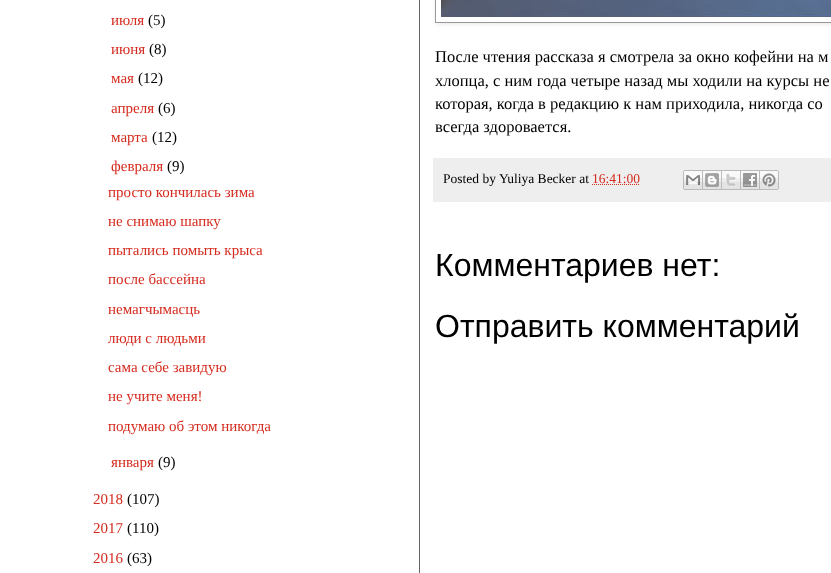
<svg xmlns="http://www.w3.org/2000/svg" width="831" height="573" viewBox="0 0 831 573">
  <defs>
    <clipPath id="clip1"><path d="M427 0H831V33H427ZM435-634H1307V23H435Z" clip-rule="evenodd"/></clipPath>
  </defs>
  <rect width="100%" height="100%" fill="rgb(255,255,255)"/>
  <rect x="419" y="0" width="1" height="573" fill="rgb(102,102,102)"/>
  <text x="111" y="25" font-family="Liberation Serif" font-size="15" fill="rgb(213,44,31)">июля</text>
  <text x="148" y="25" font-family="Liberation Serif" font-size="15" fill="rgb(0,0,0)">(5)</text>
  <text x="111" y="54" font-family="Liberation Serif" font-size="15" fill="rgb(213,44,31)">июня</text>
  <text x="149" y="54" font-family="Liberation Serif" font-size="15" fill="rgb(0,0,0)">(8)</text>
  <text x="111" y="83" font-family="Liberation Serif" font-size="15" fill="rgb(213,44,31)">мая</text>
  <text x="138" y="83" font-family="Liberation Serif" font-size="15" fill="rgb(0,0,0)">(12)</text>
  <text x="111" y="113" font-family="Liberation Serif" font-size="15" fill="rgb(213,44,31)">апреля</text>
  <text x="158" y="113" font-family="Liberation Serif" font-size="15" fill="rgb(0,0,0)">(6)</text>
  <text x="111" y="142" font-family="Liberation Serif" font-size="15" fill="rgb(213,44,31)">марта</text>
  <text x="152" y="142" font-family="Liberation Serif" font-size="15" fill="rgb(0,0,0)">(12)</text>
  <text x="111" y="171" font-family="Liberation Serif" font-size="15" fill="rgb(213,44,31)">февраля</text>
  <text x="167" y="171" font-family="Liberation Serif" font-size="15" fill="rgb(0,0,0)">(9)</text>
  <g font-family="Liberation Serif" font-size="15" fill="rgb(213,44,31)">
    <text>
      <tspan x="108" y="197">просто кончилась зима</tspan>
      <tspan x="108" y="226">не снимаю шапку</tspan>
      <tspan x="108" y="255">пытались помыть крыса</tspan>
      <tspan x="108" y="284">после бассейна</tspan>
    </text>
    <text>
      <tspan x="108" y="314">немагчымасць</tspan>
      <tspan x="108" y="343">люди с людьми</tspan>
      <tspan x="108" y="372">сама себе завидую</tspan>
      <tspan x="108" y="401">не учите меня!</tspan>
    </text>
    <text x="108" y="431">подумаю об этом никогда</text>
    <text x="111" y="467">января</text>
  </g>
  <text x="158" y="467" font-family="Liberation Serif" font-size="15" fill="rgb(0,0,0)">(9)</text>
  <text x="93" y="504" font-family="Liberation Serif" font-size="15" fill="rgb(213,44,31)">2018</text>
  <text x="127" y="504" font-family="Liberation Serif" font-size="15" fill="rgb(0,0,0)">(107)</text>
  <text x="93" y="533" font-family="Liberation Serif" font-size="15" fill="rgb(213,44,31)">2017</text>
  <text x="127" y="533" font-family="Liberation Serif" font-size="15" fill="rgb(0,0,0)">(110)</text>
  <text x="93" y="563" font-family="Liberation Serif" font-size="15" fill="rgb(213,44,31)">2016</text>
  <text x="127" y="563" font-family="Liberation Serif" font-size="15" fill="rgb(0,0,0)">(63)</text>
  <g clip-path="url(#clip1)">
    <rect x="436" y="-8" width="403" height="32" fill="rgba(0,0,0,0.1)" filter="blur(2.5px)"/>
  </g>
  <rect x="435.5" y="-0.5" width="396" height="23" fill="none" stroke="rgb(153,153,153)"/>
  <image x="441" y="0" width="390" height="17" href="pic1.png"/>
  <g font-family="Liberation Serif" font-size="16.5" fill="rgb(0,0,0)">
    <text>
      <tspan x="435" y="62">После чтения рассказа я смотрела за окно кофейни на м</tspan>
      <tspan x="435" y="86">хлопца, с ним года четыре назад мы ходили на курсы не</tspan>
      <tspan x="435" y="109">которая, когда в редакцию к нам приходила, никогда со</tspan>
      <tspan x="435" y="132">всегда здоровается.</tspan>
    </text>
  </g>
  <rect x="433" y="158" width="398" height="44" fill="rgb(238,238,238)"/>
  <g font-family="Liberation Serif" font-size="13.5" fill="rgb(0,0,0)">
    <text x="443" y="183">Posted by</text>
    <text x="499" y="183">Yuliya Becker at</text>
  </g>
  <text x="592" y="183" font-family="Liberation Serif" font-size="13.5" fill="rgb(213,44,31)">16:41:00</text>
  <path d="M592 184.5H640" fill="none" stroke="rgb(213,44,31)" stroke-dasharray="1 1"/>
  <image x="683" y="170" width="20" height="20" href="pic2.png"/>
  <image x="703" y="170" width="19" height="20" href="pic3.png"/>
  <image x="722" y="170" width="19" height="20" href="pic4.png"/>
  <image x="741" y="170" width="19" height="20" href="pic5.png"/>
  <image x="760" y="170" width="19" height="20" href="pic6.png"/>
  <g font-family="Liberation Sans" font-size="32" fill="rgb(0,0,0)">
    <text>
      <tspan x="435" y="276">Комментариев нет:</tspan>
      <tspan x="435" y="337">Отправить комментарий</tspan>
    </text>
  </g>
</svg>
